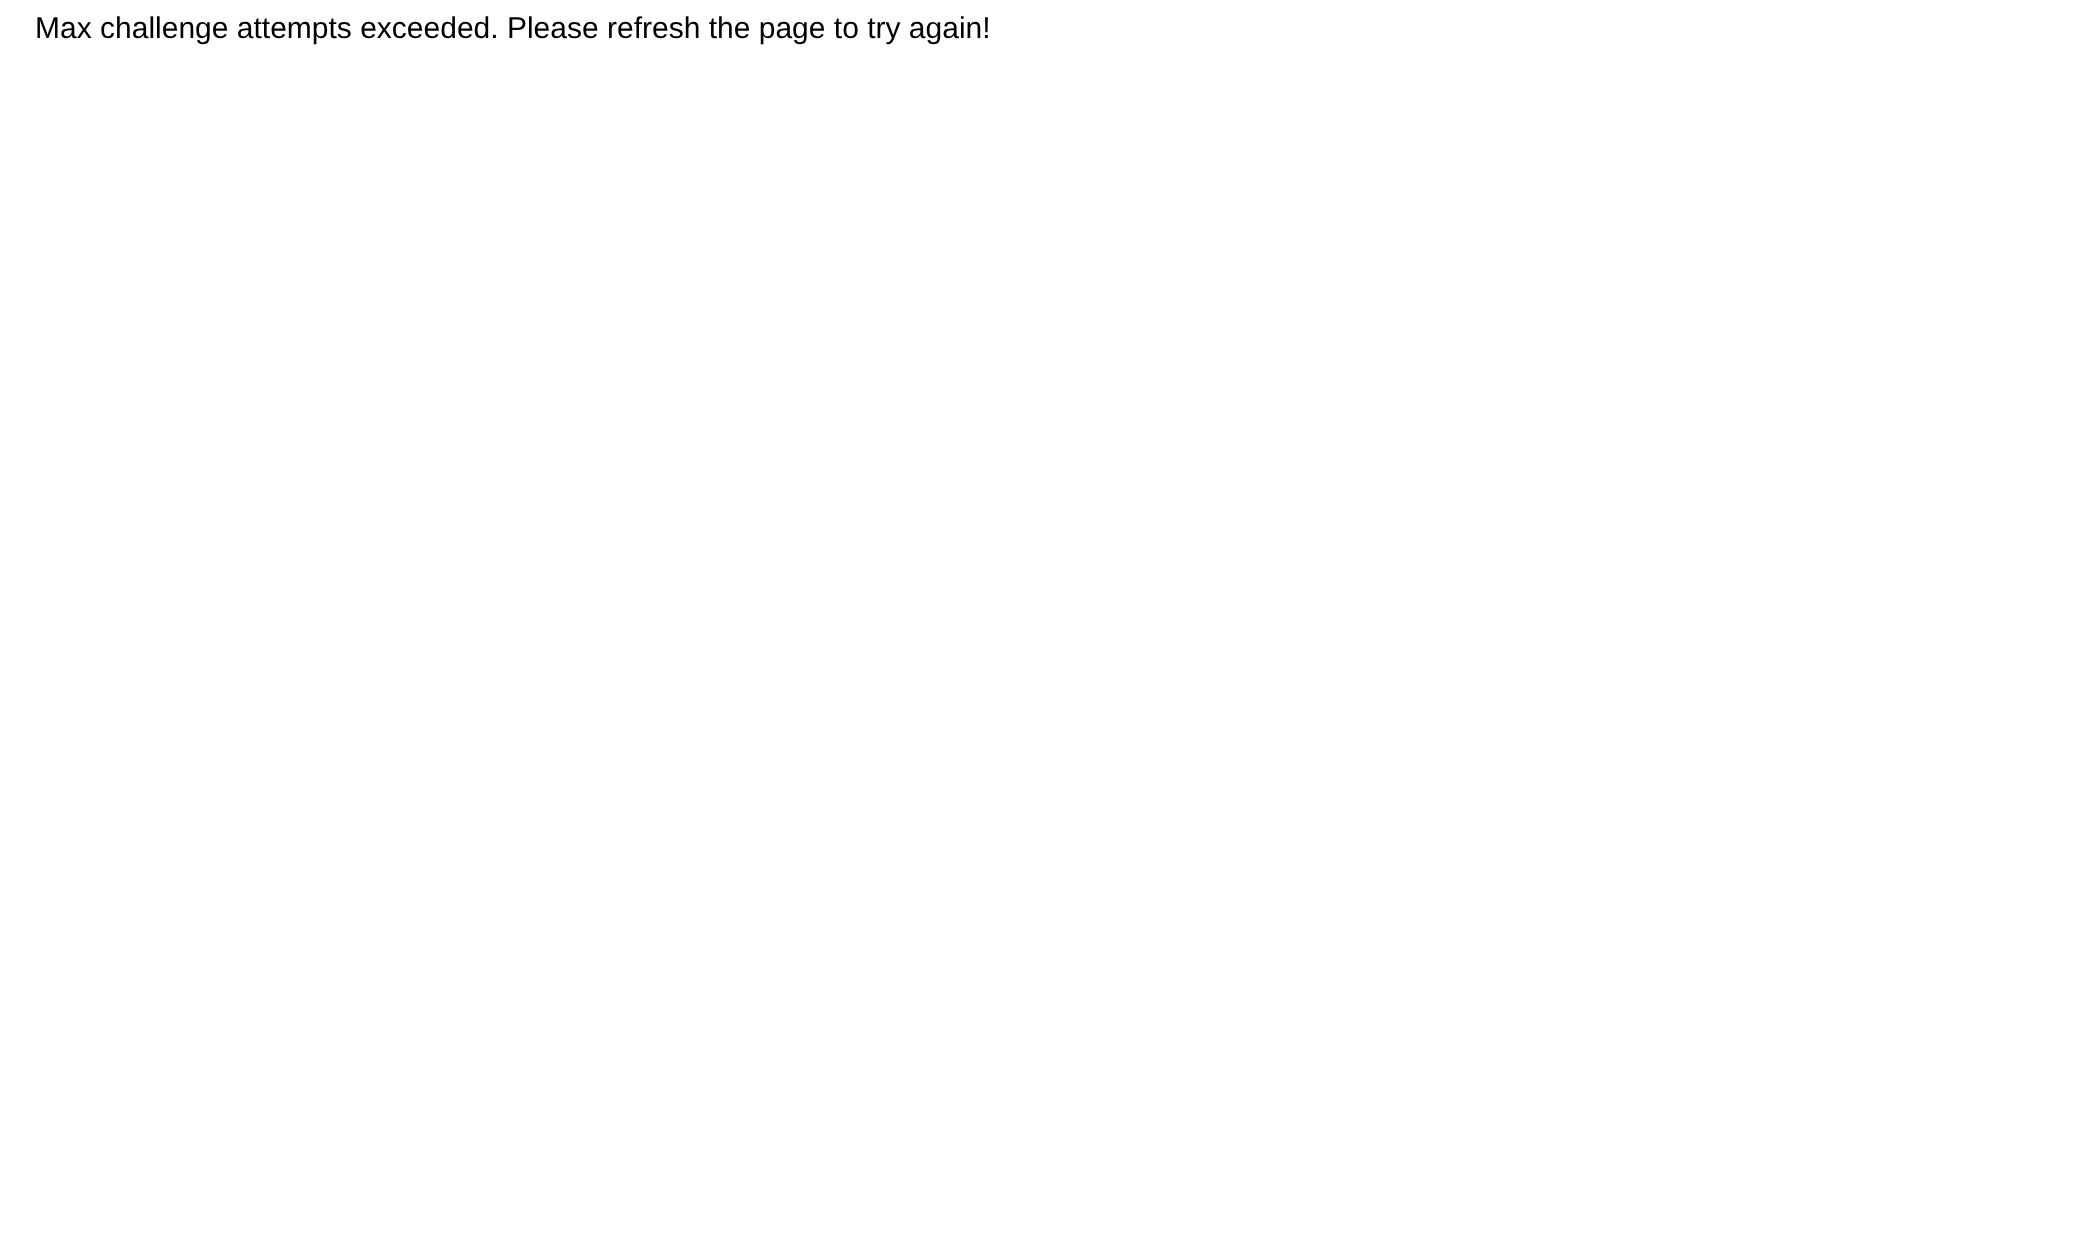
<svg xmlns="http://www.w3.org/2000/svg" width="2073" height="1243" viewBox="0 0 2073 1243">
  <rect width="100%" height="100%" fill="rgb(255,255,255)"/>
  <text x="35" y="38" font-family="Liberation Sans" font-size="30" fill="rgb(0,0,0)">Max challenge attempts exceeded. Please refresh the page to try again!</text>
</svg>
